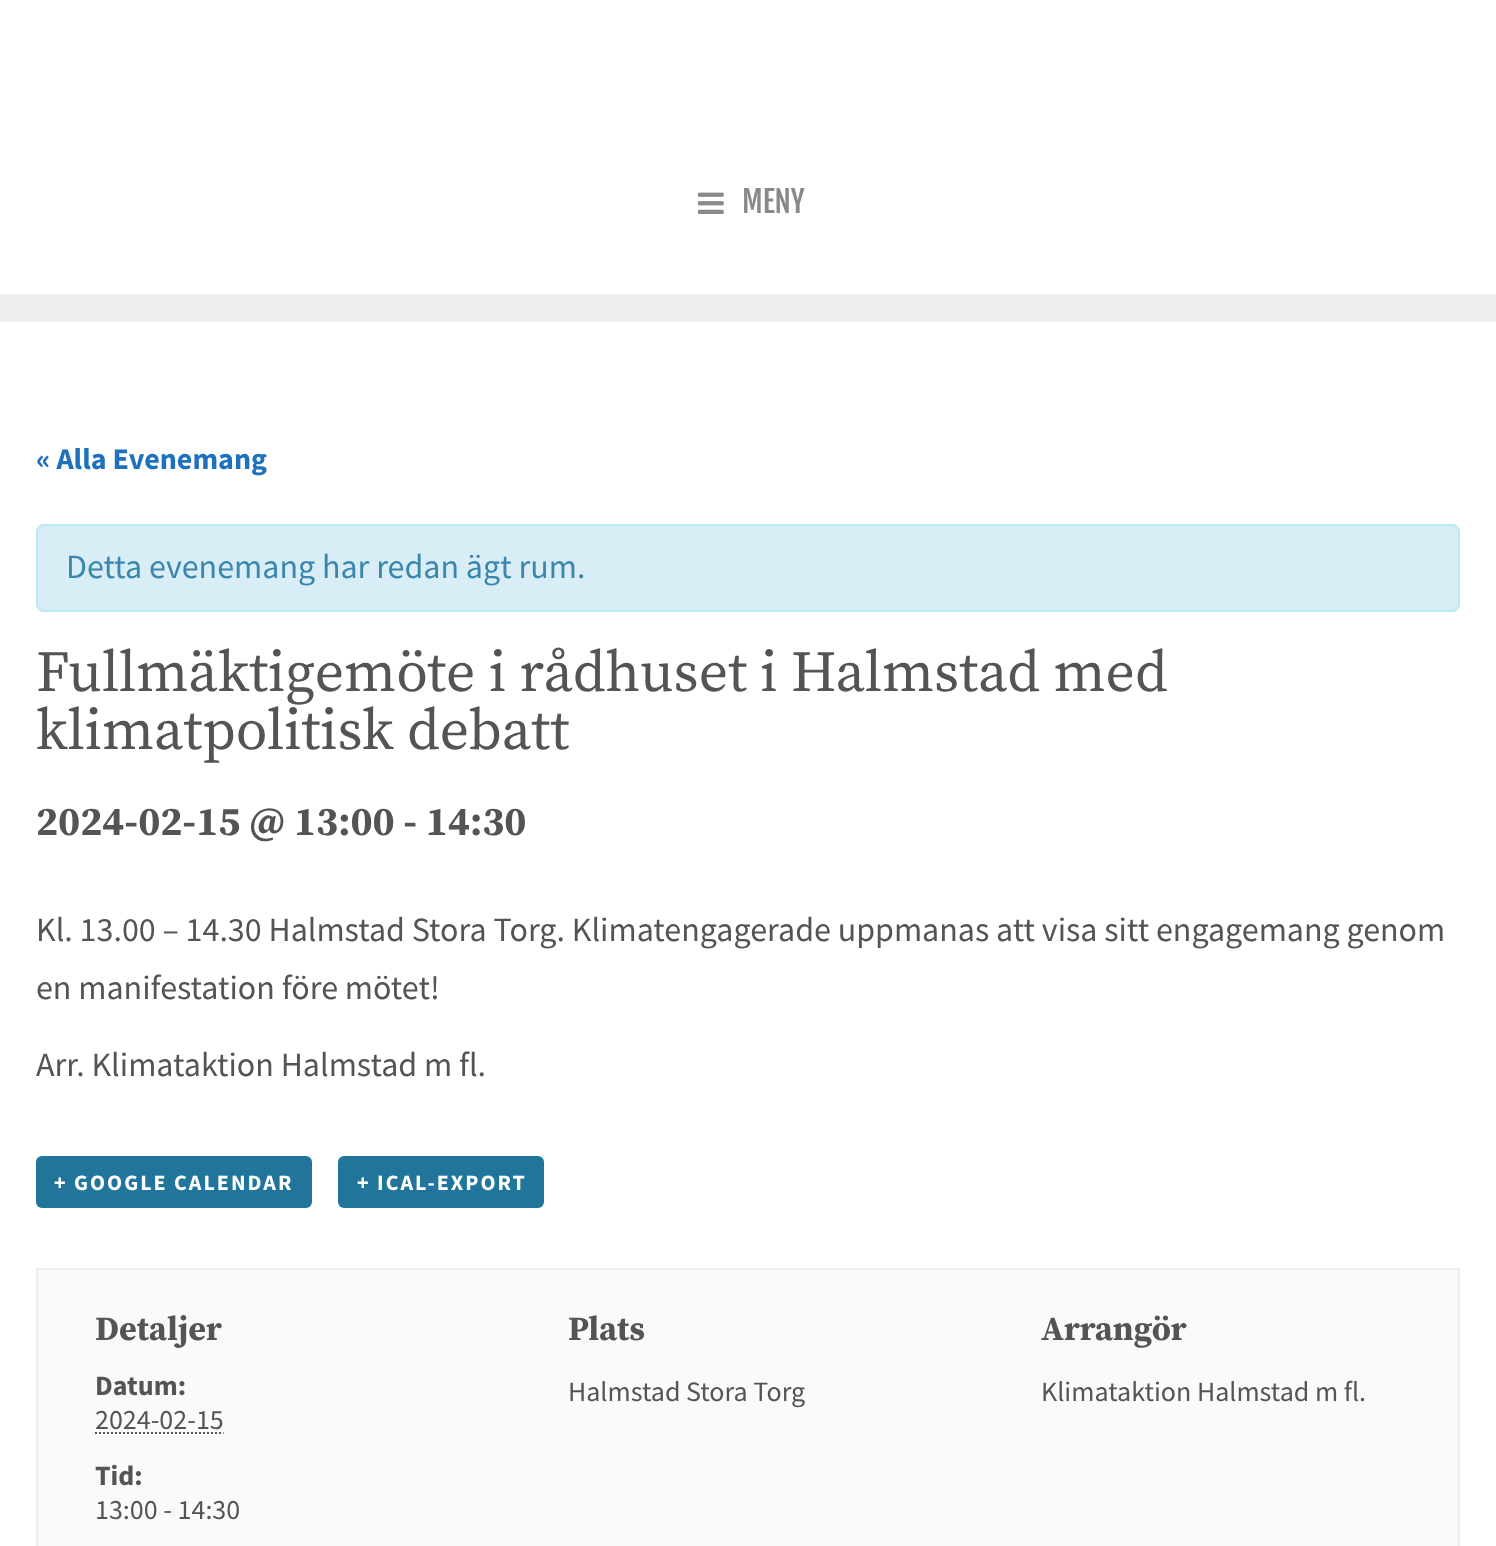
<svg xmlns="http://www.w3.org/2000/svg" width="1496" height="1546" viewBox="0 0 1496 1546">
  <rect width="100%" height="100%" fill="rgb(239,239,239)"/>
  <rect x="0" y="0" width="1496" height="294" fill="rgb(255,255,255)"/>
  <image x="698" y="192" width="26" height="22" href="pic1.png"/>
  <text x="742" y="213" font-family="Fjalla One" font-size="30" fill="rgb(137,137,137)">MENY</text>
  <rect x="0" y="322" width="1496" height="1224" fill="rgb(255,255,255)"/>
  <text x="36" y="469" font-family="Source Sans Pro" font-size="30" font-weight="bold" fill="rgb(30,114,189)">« Alla Evenemang</text>
  <rect x="37" y="525" width="1422" height="86" rx="7" fill="rgb(217,237,247)" stroke="rgb(188,232,241)" stroke-width="2"/>
  <text x="66" y="578" font-family="Source Sans Pro" font-size="34" fill="rgb(58,135,173)">Detta evenemang har redan ägt rum.</text>
  <g font-family="Source Serif Pro" font-size="57.75" fill="rgb(84,84,84)">
    <text>
      <tspan x="36" y="691">Fullmäktigemöte i rådhuset i Halmstad med</tspan>
      <tspan x="36" y="749">klimatpolitisk debatt</tspan>
    </text>
  </g>
  <text x="36" y="835" font-family="Source Serif Pro" font-size="40.75" font-weight="bold" fill="rgb(84,84,84)">2024-02-15 @ 13:00 - 14:30</text>
  <g font-family="Source Sans Pro" font-size="34" fill="rgb(84,84,84)">
    <text>
      <tspan x="36" y="941">Kl. 13.00 – 14.30 Halmstad Stora Torg. Klimatengagerade uppmanas att visa sitt engagemang genom</tspan>
      <tspan x="36" y="999">en manifestation före mötet!</tspan>
    </text>
    <text x="36" y="1076">Arr. Klimataktion Halmstad m fl.</text>
  </g>
  <rect x="36" y="1156" width="276" height="52" rx="6" fill="rgb(33,117,155)"/>
  <text x="54" y="1190" font-family="Source Sans Pro" font-size="22" font-weight="bold" letter-spacing="2" fill="rgb(255,255,255)">+ GOOGLE CALENDAR</text>
  <rect x="338" y="1156" width="206" height="52" rx="6" fill="rgb(33,117,155)"/>
  <text x="357" y="1190" font-family="Source Sans Pro" font-size="22" font-weight="bold" letter-spacing="2" fill="rgb(255,255,255)">+ ICAL-EXPORT</text>
  <rect x="37" y="1269" width="1422" height="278" fill="rgb(250,250,250)" stroke="rgb(238,238,238)" stroke-width="2"/>
  <text x="95" y="1340" font-family="Source Serif Pro" font-size="34" font-weight="bold" fill="rgb(84,84,84)">Detaljer</text>
  <text x="95" y="1395" font-family="Source Sans Pro" font-size="28" font-weight="bold" fill="rgb(84,84,84)">Datum:</text>
  <text x="95" y="1429" font-family="Source Sans Pro" font-size="28" fill="rgb(84,84,84)">2024-02-15</text>
  <path d="M95 1433H223.5" fill="none" stroke="rgb(84,84,84)" stroke-width="2" stroke-dasharray="2 2"/>
  <text x="95" y="1485" font-family="Source Sans Pro" font-size="28" font-weight="bold" fill="rgb(84,84,84)">Tid:</text>
  <text x="95" y="1519" font-family="Source Sans Pro" font-size="28" fill="rgb(84,84,84)">13:00 - 14:30</text>
  <text x="568" y="1340" font-family="Source Serif Pro" font-size="34" font-weight="bold" fill="rgb(84,84,84)">Plats</text>
  <text x="568" y="1401" font-family="Source Sans Pro" font-size="28" fill="rgb(84,84,84)">Halmstad Stora Torg</text>
  <text x="1041" y="1340" font-family="Source Serif Pro" font-size="34" font-weight="bold" fill="rgb(84,84,84)">Arrangör</text>
  <text x="1041" y="1401" font-family="Source Sans Pro" font-size="28" fill="rgb(84,84,84)">Klimataktion Halmstad m fl.</text>
</svg>
